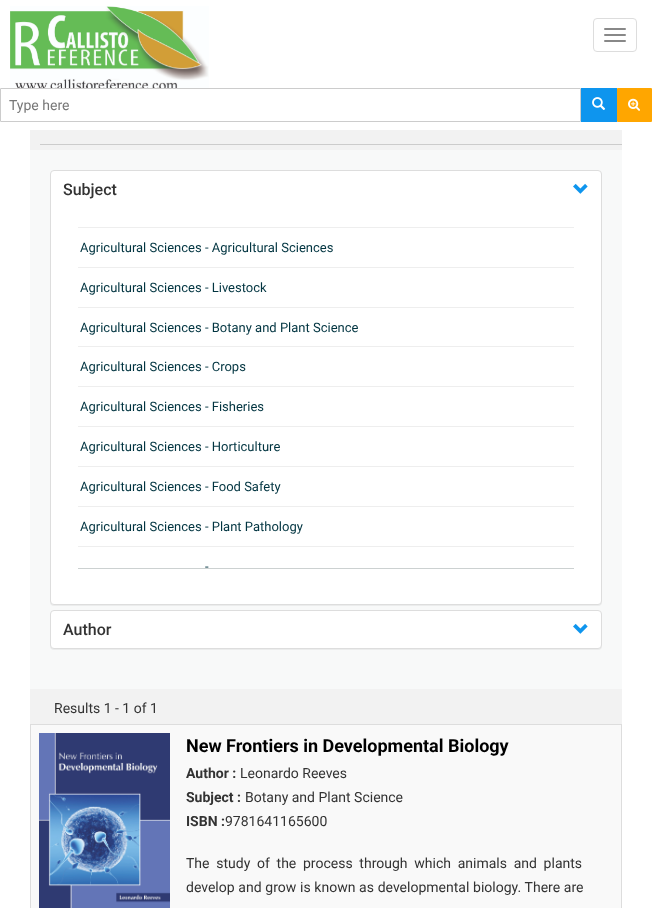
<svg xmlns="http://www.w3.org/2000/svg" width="652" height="908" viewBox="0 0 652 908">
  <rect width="100%" height="100%" fill="rgb(255,255,255)"/>
  <image x="10" y="6" width="199" height="82" href="pic1.png"/>
  <rect x="593.5" y="18.5" width="43" height="33" rx="3.5" fill="none" stroke="rgb(221,221,221)"/>
  <rect x="604" y="28" width="22" height="2" rx="1" fill="rgb(136,136,136)"/>
  <rect x="604" y="34" width="22" height="2" rx="1" fill="rgb(136,136,136)"/>
  <rect x="604" y="40" width="22" height="2" rx="1" fill="rgb(136,136,136)"/>
  <path d="M1 88.5H580.5V121.5H1C.5 121.5 .5 121.5 .5 121V89C.5 88.5 .5 88.5 1 88.5Z" fill="none" stroke="rgb(204,204,204)"/>
  <text x="9" y="110" font-family="Roboto" font-size="14" fill="rgb(119,119,119)">Type here</text>
  <rect x="581" y="88" width="36" height="34" fill="rgb(14,149,238)"/>
  <image x="592" y="97" width="14" height="13" href="pic2.png"/>
  <path d="M617.5 88.5H651C651.5 88.5 651.5 88.5 651.5 89V121C651.5 121.5 651.5 121.5 651 121.5H617.5Z" fill="rgb(255,166,0)" stroke="rgb(255,166,0)"/>
  <image x="628" y="98" width="12" height="13" href="pic3.png"/>
  <rect x="30" y="130" width="592" height="20" fill="rgb(242,242,242)"/>
  <rect x="40" y="144" width="582" height="1" fill="rgb(204,204,204)"/>
  <rect x="30" y="150" width="592" height="539" fill="rgb(248,249,249)"/>
  <rect x="50" y="171" width="552" height="435" rx="4" fill="rgba(0,0,0,0.05)" filter="blur(0.5px)"/>
  <rect x="50.5" y="170.5" width="551" height="434" rx="3.5" fill="rgb(255,255,255)" stroke="rgb(221,221,221)"/>
  <text x="63" y="195" font-family="Roboto" font-size="16" font-weight="500" fill="rgb(51,51,51)">Subject</text>
  <image x="573" y="183" width="15" height="11" href="pic4.png"/>
  <rect x="78" y="568" width="496" height="1" fill="rgb(204,209,209)"/>
  <rect x="78" y="227" width="496" height="1" fill="rgb(238,238,238)"/>
  <text x="80" y="252" font-family="Roboto" font-size="13" fill="rgb(1,52,64)">Agricultural Sciences - Agricultural Sciences</text>
  <rect x="78" y="267" width="496" height="1" fill="rgb(238,238,238)"/>
  <text x="80" y="292" font-family="Roboto" font-size="13" fill="rgb(1,52,64)">Agricultural Sciences - Livestock</text>
  <rect x="78" y="307" width="496" height="1" fill="rgb(238,238,238)"/>
  <text x="80" y="332" font-family="Roboto" font-size="13" fill="rgb(1,52,64)">Agricultural Sciences - Botany and Plant Science</text>
  <rect x="78" y="346" width="496" height="1" fill="rgb(238,238,238)"/>
  <text x="80" y="371" font-family="Roboto" font-size="13" fill="rgb(1,52,64)">Agricultural Sciences - Crops</text>
  <rect x="78" y="386" width="496" height="1" fill="rgb(238,238,238)"/>
  <text x="80" y="411" font-family="Roboto" font-size="13" fill="rgb(1,52,64)">Agricultural Sciences - Fisheries</text>
  <rect x="78" y="426" width="496" height="1" fill="rgb(238,238,238)"/>
  <text x="80" y="451" font-family="Roboto" font-size="13" fill="rgb(1,52,64)">Agricultural Sciences - Horticulture</text>
  <rect x="78" y="466" width="496" height="1" fill="rgb(238,238,238)"/>
  <text x="80" y="491" font-family="Roboto" font-size="13" fill="rgb(1,52,64)">Agricultural Sciences - Food Safety</text>
  <rect x="78" y="506" width="496" height="1" fill="rgb(238,238,238)"/>
  <text x="80" y="531" font-family="Roboto" font-size="13" fill="rgb(1,52,64)">Agricultural Sciences - Plant Pathology</text>
  <rect x="78" y="546" width="496" height="1" fill="rgb(238,238,238)"/>
  <text x="205" y="571" font-family="Roboto" font-size="13" fill="rgb(1,52,64)">-</text>
  <rect x="50" y="611" width="552" height="39" rx="4" fill="rgba(0,0,0,0.05)" filter="blur(0.5px)"/>
  <rect x="50.5" y="610.5" width="551" height="38" rx="3.5" fill="rgb(255,255,255)" stroke="rgb(221,221,221)"/>
  <text x="63" y="635" font-family="Roboto" font-size="16" font-weight="500" fill="rgb(51,51,51)">Author</text>
  <image x="573" y="623" width="15" height="11" href="pic4.png"/>
  <rect x="30" y="689" width="592" height="35" fill="rgb(242,242,242)"/>
  <text x="54" y="713" font-family="Roboto" font-size="14" fill="rgb(51,51,51)">Results 1 - 1 of 1</text>
  <rect x="30" y="724" width="592" height="1" fill="rgb(221,221,221)"/>
  <rect x="621" y="724" width="1" height="184" fill="rgb(221,221,221)"/>
  <rect x="30" y="724" width="1" height="184" fill="rgb(221,221,221)"/>
  <rect x="31" y="725" width="590" height="183" fill="rgb(249,249,249)"/>
  <image x="39" y="733" width="131" height="175" href="pic5.png"/>
  <text x="186" y="752" font-family="Roboto" font-size="18" font-weight="bold" fill="rgb(0,0,0)">New Frontiers in Developmental Biology</text>
  <text x="186" y="778" font-family="Roboto" font-size="14" font-weight="bold" fill="rgb(51,51,51)">Author :</text>
  <text x="240" y="778" font-family="Roboto" font-size="14" fill="rgb(51,51,51)">Leonardo Reeves</text>
  <text x="186" y="802" font-family="Roboto" font-size="14" font-weight="bold" fill="rgb(51,51,51)">Subject :</text>
  <text x="245" y="802" font-family="Roboto" font-size="14" fill="rgb(51,51,51)">Botany and Plant Science</text>
  <text x="186" y="826" font-family="Roboto" font-size="14" font-weight="bold" fill="rgb(51,51,51)">ISBN :</text>
  <g font-family="Roboto" font-size="14" fill="rgb(51,51,51)">
    <text x="225" y="826">9781641165600</text>
    <text>
      <tspan x="186" y="868" word-spacing="3.25">The study of the process through which animals and plants</tspan>
      <tspan x="186" y="892" word-spacing="0.25">develop and grow is known as developmental biology. There are</tspan>
    </text>
  </g>
</svg>
